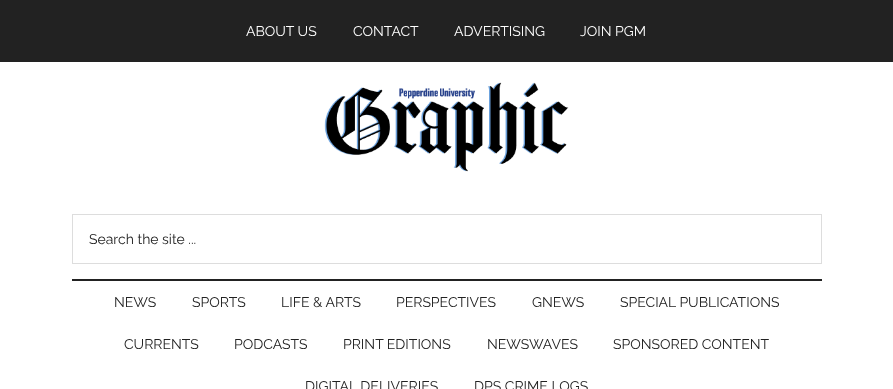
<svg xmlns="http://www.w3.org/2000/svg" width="893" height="389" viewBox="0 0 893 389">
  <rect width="100%" height="100%" fill="rgb(255,255,255)"/>
  <rect x="0" y="0" width="893" height="62" fill="rgb(34,34,34)"/>
  <g font-family="Raleway" font-size="14" fill="rgb(255,255,255)">
    <text x="246" y="36">ABOUT US</text>
    <text x="353" y="36">CONTACT</text>
    <text x="454" y="36">ADVERTISING</text>
    <text x="580" y="36">JOIN PGM</text>
  </g>
  <rect x="72" y="279" width="750" height="2" fill="rgb(34,34,34)"/>
  <image x="324" y="82" width="245" height="90" href="pic1.png"/>
  <rect x="72.5" y="214.5" width="749" height="49" fill="none" stroke="rgb(221,221,221)"/>
  <g font-family="Raleway" font-size="14" fill="rgb(34,34,34)">
    <text x="89" y="244">Search the site ...</text>
    <text x="114" y="307">NEWS</text>
    <text x="192" y="307">SPORTS</text>
    <text x="281" y="307">LIFE &amp; ARTS</text>
    <text x="396" y="307">PERSPECTIVES</text>
    <text x="532" y="307">GNEWS</text>
    <text x="620" y="307">SPECIAL PUBLICATIONS</text>
    <text x="124" y="349">CURRENTS</text>
    <text x="234" y="349">PODCASTS</text>
    <text x="343" y="349">PRINT EDITIONS</text>
    <text x="487" y="349">NEWSWAVES</text>
    <text x="613" y="349">SPONSORED CONTENT</text>
    <text x="305" y="391">DIGITAL DELIVERIES</text>
    <text x="474" y="391">DPS CRIME LOGS</text>
  </g>
</svg>
